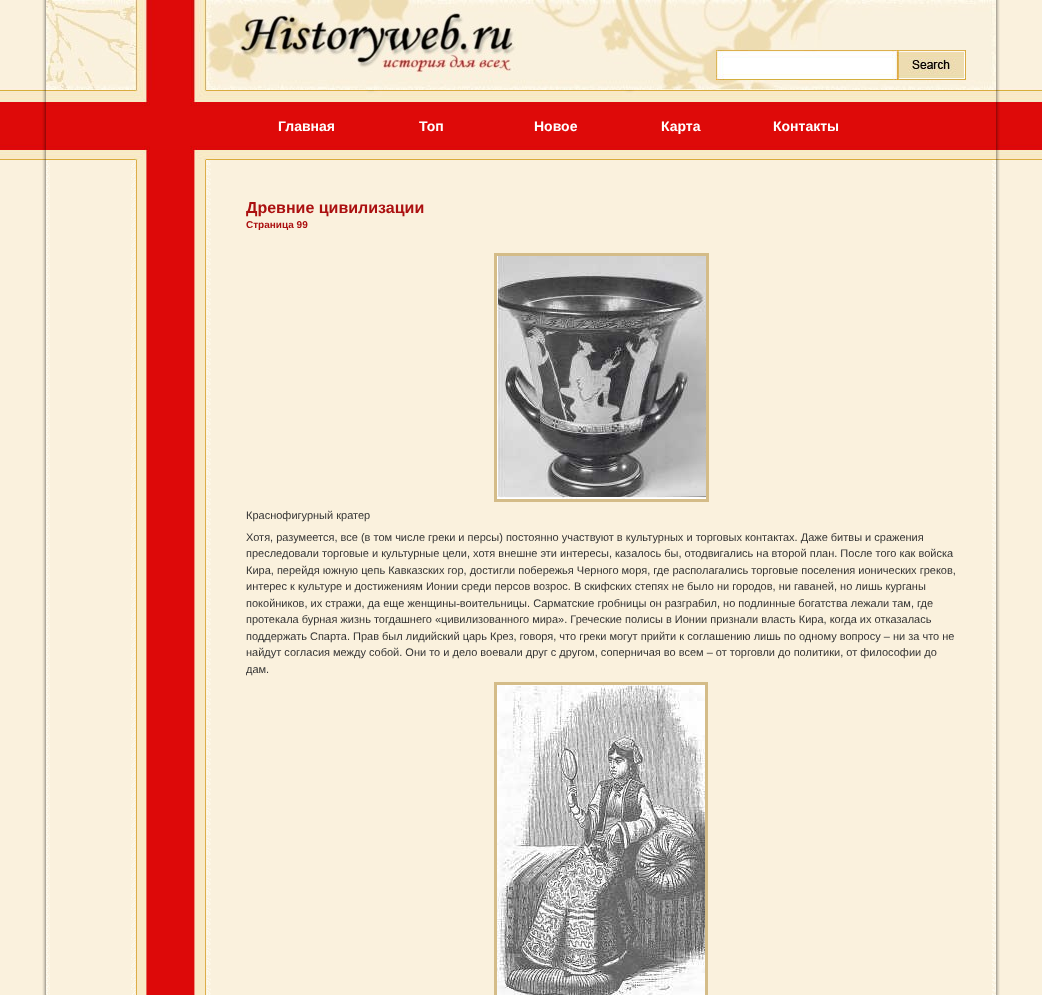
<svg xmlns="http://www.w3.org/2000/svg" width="1042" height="995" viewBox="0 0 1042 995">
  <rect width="100%" height="100%" fill="rgb(250,241,221)"/>
  <image x="0" y="88" width="1042" height="72" href="pic1.png"/>
  <image x="42" y="0" width="958" height="995" href="pic2.png"/>
  <image x="46" y="0" width="950" height="90" href="pic3.png"/>
  <image x="716" y="50" width="250" height="30" href="pic4.png"/>
  <image x="46" y="90" width="950" height="70" href="pic5.png"/>
  <g font-family="Liberation Sans" font-size="14" font-weight="bold" fill="rgb(255,255,255)">
    <text x="278" y="131">Главная</text>
    <text x="419" y="131">Топ</text>
    <text x="534" y="131">Новое</text>
    <text x="661" y="131">Карта</text>
    <text x="773" y="131">Контакты</text>
  </g>
  <text x="246" y="213" font-family="Liberation Sans" font-size="16" font-weight="bold" fill="rgb(171,16,16)">Древние цивилизации</text>
  <text x="246" y="228" font-family="Liberation Sans" font-size="10" font-weight="bold" fill="rgb(171,16,16)">Страница 99</text>
  <rect x="495.5" y="254.5" width="212" height="246" fill="none" stroke="rgb(212,188,136)" stroke-width="3"/>
  <image x="497" y="256" width="209" height="243" href="pic6.png"/>
  <g font-family="Liberation Sans" font-size="11" fill="rgb(51,51,51)">
    <text x="246" y="519">Краснофигурный кратер</text>
    <text>
      <tspan x="246" y="541">Хотя, разумеется, все (в том числе греки и персы) постоянно участвуют в культурных и торговых контактах. Даже битвы и сражения</tspan>
      <tspan x="246" y="557">преследовали торговые и культурные цели, хотя внешне эти интересы, казалось бы, отодвигались на второй план. После того как войска</tspan>
      <tspan x="246" y="574">Кира, перейдя южную цепь Кавказских гор, достигли побережья Черного моря, где располагались торговые поселения ионических греков,</tspan>
      <tspan x="246" y="590">интерес к культуре и достижениям Ионии среди персов возрос. В скифских степях не было ни городов, ни гаваней, но лишь курганы</tspan>
      <tspan x="246" y="607">покойников, их стражи, да еще женщины‑воительницы. Сарматские гробницы он разграбил, но подлинные богатства лежали там, где</tspan>
      <tspan x="246" y="623">протекала бурная жизнь тогдашнего «цивилизованного мира». Греческие полисы в Ионии признали власть Кира, когда их отказалась</tspan>
      <tspan x="246" y="640">поддержать Спарта. Прав был лидийский царь Крез, говоря, что греки могут прийти к соглашению лишь по одному вопросу – ни за что не</tspan>
      <tspan x="246" y="656">найдут согласия между собой. Они то и дело воевали друг с другом, соперничая во всем – от торговли до политики, от философии до</tspan>
      <tspan x="246" y="673">дам.</tspan>
    </text>
  </g>
  <rect x="495.5" y="683.5" width="211" height="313" fill="none" stroke="rgb(212,188,136)" stroke-width="3"/>
  <image x="497" y="685" width="208" height="310" href="pic7.png"/>
</svg>
